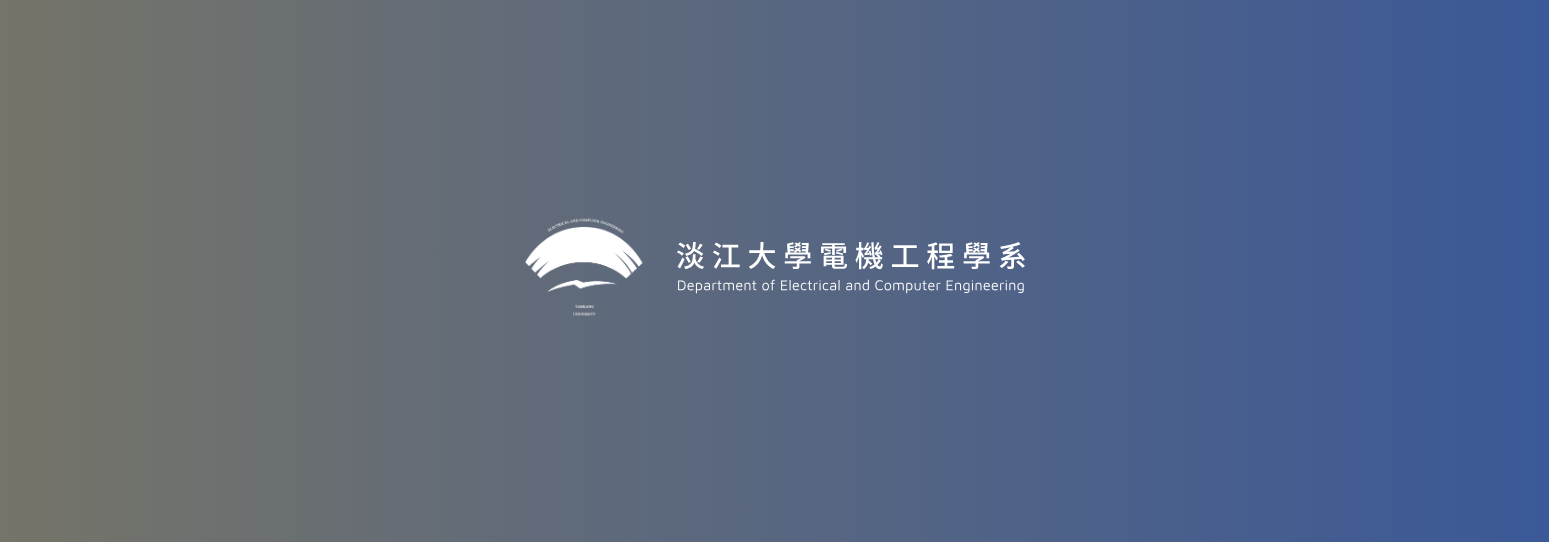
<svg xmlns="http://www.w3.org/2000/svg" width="1549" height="542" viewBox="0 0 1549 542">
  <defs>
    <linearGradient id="g1" gradientUnits="userSpaceOnUse" x1="-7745" y1="271" x2="1549" y2="271"><stop offset="0.2" stop-color="rgb(248,247,247)"/><stop offset="0.5" stop-color="rgb(233,170,9)"/><stop offset="1" stop-color="rgb(59,89,152)"/></linearGradient>
  </defs>
  <rect width="100%" height="100%" fill="rgb(255,255,255)"/>
  <rect x="0" y="0" width="1549" height="542" fill="url(#g1)"/>
  <image x="525" y="218" width="500" height="98" href="pic1.png"/>
</svg>
